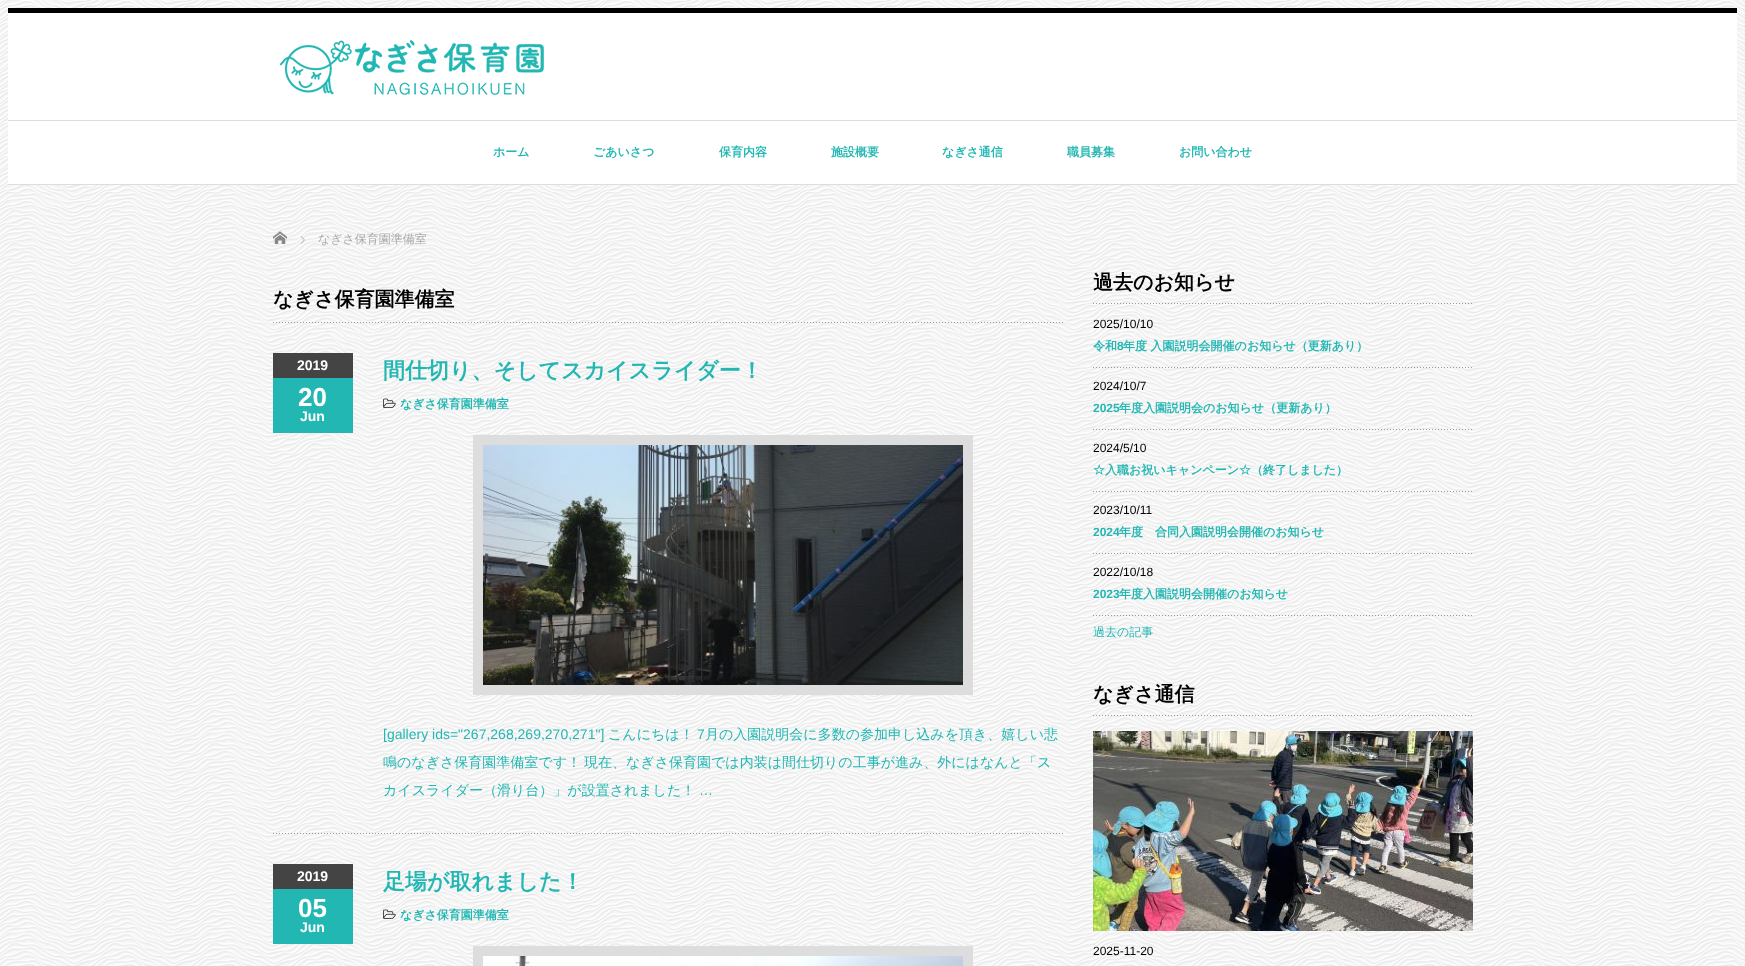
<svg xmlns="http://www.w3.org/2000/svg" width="1745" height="966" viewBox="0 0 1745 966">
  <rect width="100%" height="100%" fill="rgb(255,255,255)"/>
  <image x="0" y="0" width="1745" height="966" href="pic1.png"/>
  <rect x="8" y="13" width="1729" height="171" fill="rgb(255,255,255)"/>
  <rect x="8" y="8" width="1729" height="5" fill="rgb(0,0,0)"/>
  <rect x="8" y="184" width="1729" height="1" fill="rgb(221,221,221)"/>
  <image x="280" y="40" width="264" height="55" href="pic2.png"/>
  <rect x="8" y="120" width="1729" height="1" fill="rgb(221,221,221)"/>
  <g font-family="WenQuanYi Zen Hei" font-size="12" font-weight="bold" fill="rgb(35,183,179)">
    <text x="493" y="156">ホーム</text>
    <text x="593" y="156">ごあいさつ</text>
    <text x="719" y="156">保育内容</text>
    <text x="831" y="156">施設概要</text>
    <text x="942" y="156">なぎさ通信</text>
    <text x="1067" y="156">職員募集</text>
    <text x="1179" y="156">お問い合わせ</text>
  </g>
  <image x="273" y="231" width="14" height="13" href="pic3.png"/>
  <image x="300" y="236" width="5" height="8" href="pic4.png"/>
  <text x="318" y="243" font-family="WenQuanYi Zen Hei" font-size="12" font-weight="500" fill="rgb(170,170,170)">なぎさ保育園準備室</text>
  <image x="273" y="322" width="790" height="1" href="pic5.png"/>
  <text x="273" y="306" font-family="WenQuanYi Zen Hei" font-size="20" font-weight="bold" fill="rgb(0,0,0)">なぎさ保育園準備室</text>
  <image x="273" y="833" width="790" height="1" href="pic6.png"/>
  <rect x="273" y="378" width="80" height="55" fill="rgb(35,183,179)"/>
  <rect x="273" y="353" width="80" height="25" fill="rgb(68,68,68)"/>
  <text x="297" y="370" font-family="Liberation Sans" font-size="14" font-weight="bold" fill="rgb(255,255,255)">2019</text>
  <text x="298" y="406" font-family="Liberation Sans" font-size="26" font-weight="bold" fill="rgb(255,255,255)">20</text>
  <text x="300" y="421" font-family="Liberation Sans" font-size="14" font-weight="bold" fill="rgb(255,255,255)">Jun</text>
  <text x="383" y="378" font-family="WenQuanYi Zen Hei" font-size="22" font-weight="bold" fill="rgb(35,183,179)">間仕切り、そしてスカイスライダー！</text>
  <image x="383" y="398" width="13" height="10" href="pic7.png"/>
  <text x="400" y="408" font-family="WenQuanYi Zen Hei" font-size="12" font-weight="bold" fill="rgb(35,183,179)">なぎさ保育園準備室</text>
  <rect x="478" y="440" width="490" height="250" fill="none" stroke="rgb(221,221,221)" stroke-width="10"/>
  <image x="483" y="445" width="480" height="240" href="pic8.png"/>
  <text x="383" y="739" font-family="Liberation Sans" font-size="14" fill="rgb(35,183,179)">[gallery ids="267,268,269,270,271"]</text>
  <text x="608" y="739" font-family="WenQuanYi Zen Hei" font-size="14" font-weight="500" fill="rgb(35,183,179)">こんにちは！</text>
  <text x="697" y="739" font-family="Liberation Sans" font-size="14" fill="rgb(35,183,179)">7</text>
  <g font-family="WenQuanYi Zen Hei" font-size="14" font-weight="500" fill="rgb(35,183,179)">
    <text x="705" y="739">月の入園説明会に多数の参加申し込みを頂き、嬉しい悲</text>
    <text x="383" y="767">鳴のなぎさ保育園準備室です！</text>
    <text x="584" y="767">現在、なぎさ保育園では内装は間仕切りの工事が進み、外にはなんと「ス</text>
    <text x="383" y="795">カイスライダー（滑り台）」が設置されました！</text>
  </g>
  <text x="699" y="795" font-family="Liberation Sans" font-size="14" fill="rgb(35,183,179)">…</text>
  <rect x="273" y="889" width="80" height="55" fill="rgb(35,183,179)"/>
  <rect x="273" y="864" width="80" height="25" fill="rgb(68,68,68)"/>
  <text x="297" y="881" font-family="Liberation Sans" font-size="14" font-weight="bold" fill="rgb(255,255,255)">2019</text>
  <text x="298" y="917" font-family="Liberation Sans" font-size="26" font-weight="bold" fill="rgb(255,255,255)">05</text>
  <text x="300" y="932" font-family="Liberation Sans" font-size="14" font-weight="bold" fill="rgb(255,255,255)">Jun</text>
  <text x="383" y="889" font-family="WenQuanYi Zen Hei" font-size="22" font-weight="bold" fill="rgb(35,183,179)">足場が取れました！</text>
  <image x="383" y="909" width="13" height="10" href="pic9.png"/>
  <text x="400" y="919" font-family="WenQuanYi Zen Hei" font-size="12" font-weight="bold" fill="rgb(35,183,179)">なぎさ保育園準備室</text>
  <rect x="478" y="951" width="490" height="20" fill="none" stroke="rgb(221,221,221)" stroke-width="10"/>
  <image x="483" y="956" width="480" height="10" href="pic10.png"/>
  <image x="1093" y="303" width="379" height="1" href="pic11.png"/>
  <text x="1093" y="289" font-family="WenQuanYi Zen Hei" font-size="20" font-weight="bold" fill="rgb(0,0,0)">過去のお知らせ</text>
  <image x="1093" y="367" width="379" height="1" href="pic12.png"/>
  <text x="1093" y="328" font-family="Liberation Sans" font-size="12" fill="rgb(0,0,0)">2025/10/10</text>
  <text x="1093" y="350" font-family="WenQuanYi Zen Hei" font-size="12" font-weight="bold" fill="rgb(35,183,179)">令和</text>
  <text x="1117" y="350" font-family="Liberation Sans" font-size="12" font-weight="bold" fill="rgb(35,183,179)">8</text>
  <text x="1123" y="350" font-family="WenQuanYi Zen Hei" font-size="12" font-weight="bold" fill="rgb(35,183,179)">年度 入園説明会開催のお知らせ（更新あり）</text>
  <image x="1093" y="429" width="379" height="1" href="pic13.png"/>
  <text x="1093" y="390" font-family="Liberation Sans" font-size="12" fill="rgb(0,0,0)">2024/10/7</text>
  <text x="1093" y="412" font-family="Liberation Sans" font-size="12" font-weight="bold" fill="rgb(35,183,179)">2025</text>
  <text x="1119" y="412" font-family="WenQuanYi Zen Hei" font-size="12" font-weight="bold" fill="rgb(35,183,179)">年度入園説明会のお知らせ（更新あり）</text>
  <image x="1093" y="491" width="379" height="1" href="pic14.png"/>
  <text x="1093" y="452" font-family="Liberation Sans" font-size="12" fill="rgb(0,0,0)">2024/5/10</text>
  <text x="1093" y="474" font-family="WenQuanYi Zen Hei" font-size="12" font-weight="bold" fill="rgb(35,183,179)">☆入職お祝いキャンペーン☆（終了しました）</text>
  <image x="1093" y="553" width="379" height="1" href="pic15.png"/>
  <text x="1093" y="514" font-family="Liberation Sans" font-size="12" fill="rgb(0,0,0)">2023/10/11</text>
  <text x="1093" y="536" font-family="Liberation Sans" font-size="12" font-weight="bold" fill="rgb(35,183,179)">2024</text>
  <text x="1119" y="536" font-family="WenQuanYi Zen Hei" font-size="12" font-weight="bold" fill="rgb(35,183,179)">年度　合同入園説明会開催のお知らせ</text>
  <image x="1093" y="615" width="379" height="1" href="pic16.png"/>
  <text x="1093" y="576" font-family="Liberation Sans" font-size="12" fill="rgb(0,0,0)">2022/10/18</text>
  <text x="1093" y="598" font-family="Liberation Sans" font-size="12" font-weight="bold" fill="rgb(35,183,179)">2023</text>
  <text x="1119" y="598" font-family="WenQuanYi Zen Hei" font-size="12" font-weight="bold" fill="rgb(35,183,179)">年度入園説明会開催のお知らせ</text>
  <text x="1093" y="636" font-family="WenQuanYi Zen Hei" font-size="12" font-weight="500" fill="rgb(35,183,179)">過去の記事</text>
  <image x="1093" y="715" width="379" height="1" href="pic17.png"/>
  <text x="1093" y="701" font-family="WenQuanYi Zen Hei" font-size="20" font-weight="bold" fill="rgb(0,0,0)">なぎさ通信</text>
  <image x="1093" y="731" width="380" height="200" href="pic18.png"/>
  <text x="1093" y="955" font-family="Liberation Sans" font-size="12" fill="rgb(0,0,0)">2025-11-20</text>
</svg>
